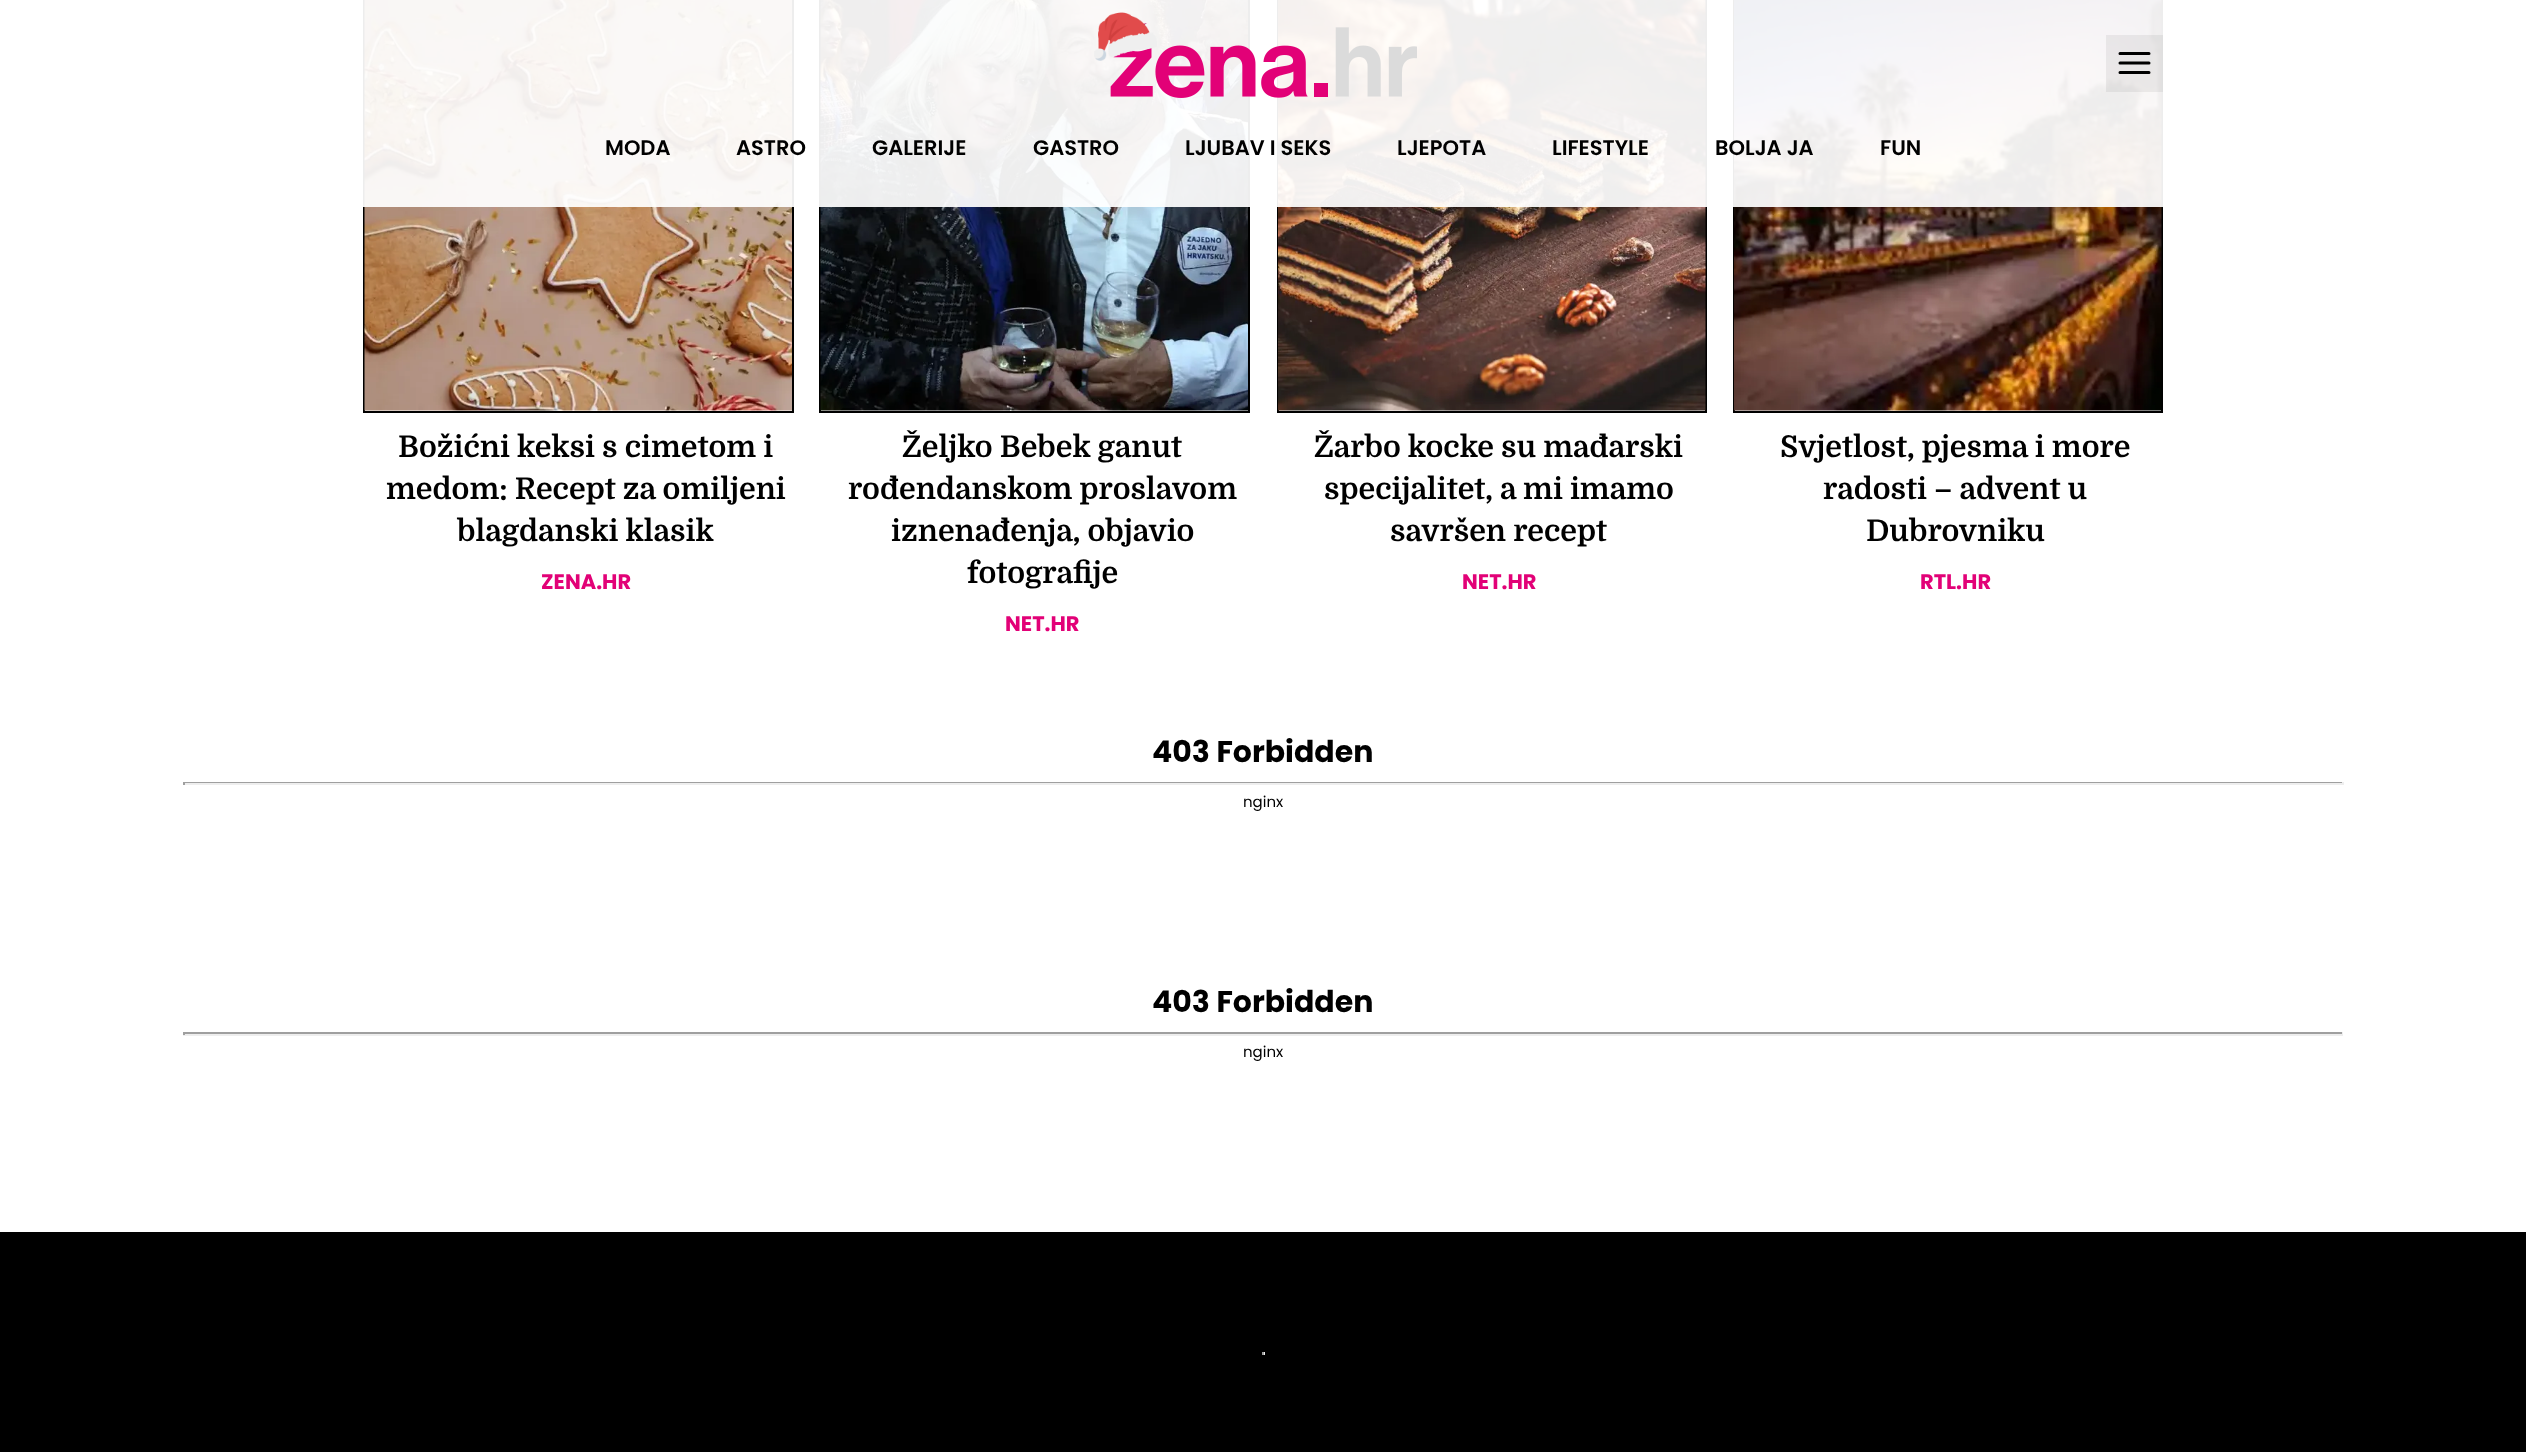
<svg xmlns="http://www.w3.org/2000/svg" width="2526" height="1452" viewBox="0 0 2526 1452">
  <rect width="100%" height="100%" fill="rgb(255,255,255)"/>
  <rect x="364" y="-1" width="429" height="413" fill="none" stroke="rgb(0,0,0)" stroke-width="2"/>
  <image x="364" y="0" width="428" height="411" href="pic3.png"/>
  <rect x="820" y="-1" width="429" height="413" fill="none" stroke="rgb(0,0,0)" stroke-width="2"/>
  <image x="820" y="0" width="428" height="411" href="pic4.png"/>
  <rect x="1278" y="-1" width="428" height="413" fill="none" stroke="rgb(0,0,0)" stroke-width="2"/>
  <image x="1278" y="0" width="428" height="411" href="pic5.png"/>
  <rect x="1734" y="-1" width="428" height="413" fill="none" stroke="rgb(0,0,0)" stroke-width="2"/>
  <image x="1734" y="0" width="428" height="411" href="pic6.png"/>
  <rect x="363" y="0" width="1800" height="207" fill="rgba(255,255,255,0.93)"/>
  <image x="1110" y="23" width="307" height="75" href="pic2.png"/>
  <image x="1094" y="12" width="63" height="49" href="pic1.png"/>
  <rect x="2106" y="35" width="57" height="57" fill="rgba(0,0,0,0.06)"/>
  <path d="M2120 63H2149M2120 53.5H2149M2120 72.5H2149" fill="none" stroke="rgb(0,0,0)" stroke-width="3" stroke-linecap="round" stroke-linejoin="round"/>
  <g font-family="Poppins" font-size="21" font-weight="600" fill="rgb(0,0,0)">
    <text x="605" y="155">MODA</text>
    <text x="736" y="155">ASTRO</text>
    <text x="872" y="155">GALERIJE</text>
    <text x="1033" y="155">GASTRO</text>
    <text x="1185" y="155">LJUBAV I SEKS</text>
    <text x="1397" y="155">LJEPOTA</text>
    <text x="1552" y="155">LIFESTYLE</text>
    <text x="1715" y="155">BOLJA JA</text>
    <text x="1880" y="155">FUN</text>
  </g>
  <g font-family="Domine" font-size="30" font-weight="bold" fill="rgb(0,0,0)">
    <text x="398" y="457">Božićni keksi s cimetom i</text>
    <text x="386" y="499">medom: Recept za omiljeni</text>
    <text x="457" y="541">blagdanski klasik</text>
  </g>
  <text x="541" y="589" font-family="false" font-size="21" font-weight="bold" fill="rgb(226,1,119)">ZENA.HR</text>
  <g font-family="Domine" font-size="30" font-weight="bold" fill="rgb(0,0,0)">
    <text x="902" y="457">Željko Bebek ganut</text>
    <text x="848" y="499">rođendanskom proslavom</text>
    <text x="891" y="541">iznenađenja, objavio</text>
    <text x="967" y="583">fotografije</text>
  </g>
  <text x="1005" y="631" font-family="false" font-size="21" font-weight="bold" fill="rgb(226,1,119)">NET.HR</text>
  <g font-family="Domine" font-size="30" font-weight="bold" fill="rgb(0,0,0)">
    <text x="1314" y="457">Žarbo kocke su mađarski</text>
    <text x="1324" y="499">specijalitet, a mi imamo</text>
    <text x="1390" y="541">savršen recept</text>
  </g>
  <text x="1462" y="589" font-family="false" font-size="21" font-weight="bold" fill="rgb(226,1,119)">NET.HR</text>
  <g font-family="Domine" font-size="30" font-weight="bold" fill="rgb(0,0,0)">
    <text x="1780" y="457">Svjetlost, pjesma i more</text>
    <text x="1823" y="499">radosti – advent u</text>
    <text x="1866" y="541">Dubrovniku</text>
  </g>
  <text x="1920" y="589" font-family="false" font-size="21" font-weight="bold" fill="rgb(226,1,119)">RTL.HR</text>
  <text x="1152" y="762" font-family="false" font-size="30" font-weight="bold" fill="rgb(0,0,0)">403 Forbidden</text>
  <rect x="183" y="782" width="2160" height="1" fill="rgb(159,159,159)"/>
  <rect x="2342" y="782" width="2" height="3" fill="rgb(238,238,238)"/>
  <rect x="183" y="783" width="2160" height="2" fill="rgb(238,238,238)"/>
  <rect x="183" y="782" width="2" height="3" fill="rgb(159,159,159)"/>
  <text x="1243" y="807" font-family="false" font-size="15" fill="rgb(0,0,0)">nginx</text>
  <text x="1152" y="1012" font-family="false" font-size="30" font-weight="bold" fill="rgb(0,0,0)">403 Forbidden</text>
  <rect x="183" y="1032" width="2160" height="2" fill="rgb(159,159,159)"/>
  <rect x="2342" y="1032" width="1" height="3" fill="rgb(238,238,238)"/>
  <rect x="183" y="1034" width="2160" height="2" fill="rgb(238,238,238)"/>
  <rect x="183" y="1032" width="2" height="3" fill="rgb(159,159,159)"/>
  <text x="1243" y="1057" font-family="false" font-size="15" fill="rgb(0,0,0)">nginx</text>
  <rect x="0" y="1232" width="2526" height="220" fill="rgb(0,0,0)"/>
  <rect x="1264" y="1352" width="1" height="3" fill="rgb(238,238,238)"/>
  <rect x="1262" y="1353" width="3" height="2" fill="rgb(238,238,238)"/>
  <rect x="1262" y="1352" width="2" height="3" fill="rgb(159,159,159)"/>
</svg>
